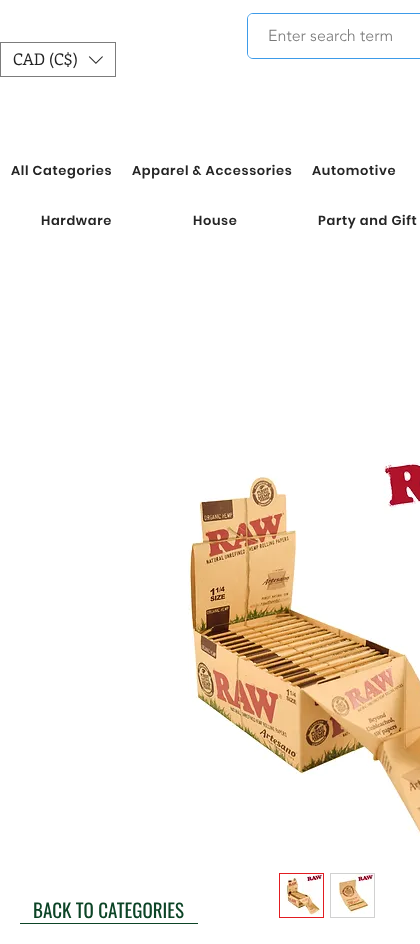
<svg xmlns="http://www.w3.org/2000/svg" width="420" height="944" viewBox="0 0 420 944">
  <rect width="100%" height="100%" fill="rgb(255,255,255)"/>
  <rect x="247.5" y="13.5" width="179" height="45" rx="5.5" fill="none" stroke="rgb(61,155,233)"/>
  <rect x="248" y="14" width="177" height="44" rx="5" fill="rgb(255,255,255)"/>
  <text x="268" y="41" font-family="'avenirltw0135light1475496'" font-size="16" font-weight="300" fill="rgb(120,120,120)">Enter search term</text>
  <rect x="0.5" y="42.5" width="115" height="34" fill="none" stroke="rgb(124,124,124)"/>
  <text x="13" y="65" font-family="Enriqueta" font-size="16" fill="rgb(36,36,36)">CAD (C$)</text>
  <image x="88" y="56" width="15" height="8" href="pic1.png"/>
  <g font-family="Poppins" font-size="13" font-weight="600" letter-spacing="0.65" fill="rgb(36,36,36)">
    <text x="11" y="175">All Categories</text>
    <text x="132" y="175">Apparel &amp; Accessories</text>
    <text x="312" y="175">Automotive</text>
    <text x="41" y="225">Hardware</text>
    <text x="193" y="225">House</text>
    <text x="318" y="225">Party and Gift</text>
  </g>
  <rect x="20" y="923" width="178" height="1" fill="rgb(12,68,38)"/>
  <text x="33" y="918" font-family="Oswald" font-size="19" fill="rgb(12,68,38)">BACK TO CATEGORIES</text>
  <image x="188" y="462" width="232" height="374" href="pic2.png"/>
  <rect x="279.5" y="873.5" width="44" height="44" fill="none" stroke="rgb(226,28,33)"/>
  <image x="284" y="874" width="39" height="41" href="pic3.png"/>
  <rect x="330.5" y="873.5" width="44" height="44" fill="none" stroke="rgb(209,209,209)"/>
  <image x="338" y="874" width="36" height="40" href="pic4.png"/>
</svg>
